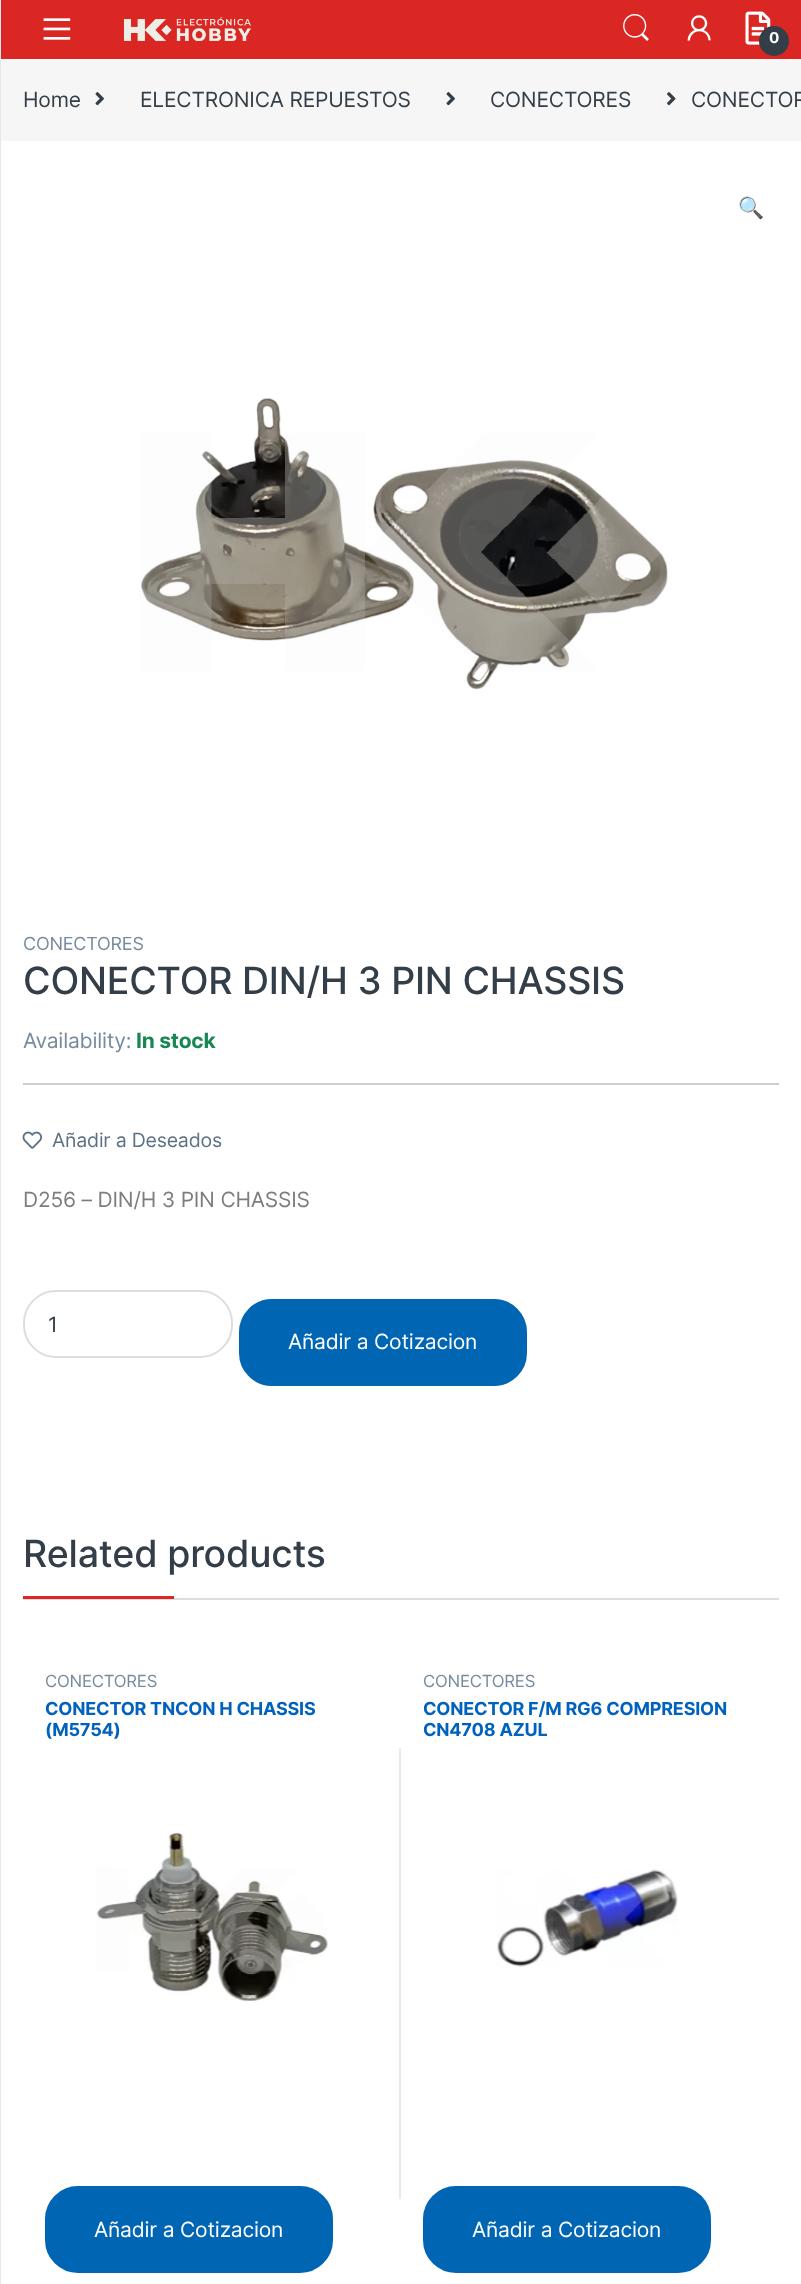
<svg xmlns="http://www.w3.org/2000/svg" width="801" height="2284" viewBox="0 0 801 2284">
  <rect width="100%" height="100%" fill="rgb(255,255,255)"/>
  <rect x="1" y="0" width="800" height="59" fill="rgb(219,39,35)"/>
  <rect x="0" y="0" width="1" height="2284" fill="rgb(227,233,239)"/>
  <image x="43" y="18" width="28" height="22" href="pic1.png"/>
  <image x="123" y="17" width="128" height="24" href="pic2.png"/>
  <image x="623" y="14" width="26" height="27" href="pic3.png"/>
  <image x="687" y="15" width="24" height="26" href="pic4.png"/>
  <image x="745" y="11" width="26" height="34" href="pic5.png"/>
  <circle cx="774" cy="41" r="15" fill="rgb(51,62,72)"/>
  <text x="769" y="43" font-family="Inter" font-size="15" font-weight="bold" letter-spacing="-0.2" fill="rgb(255,255,255)">0</text>
  <rect x="1" y="59" width="800" height="82" fill="rgb(247,246,246)"/>
  <text x="23" y="107" font-family="Inter" font-size="21" letter-spacing="-0.2" fill="rgb(51,62,72)">Home</text>
  <image x="95" y="92" width="9" height="14" href="pic6.png"/>
  <text x="140" y="107" font-family="Inter" font-size="21" letter-spacing="-0.2" fill="rgb(51,62,72)">ELECTRONICA REPUESTOS</text>
  <image x="446" y="92" width="9" height="14" href="pic6.png"/>
  <text x="490" y="107" font-family="Inter" font-size="21" letter-spacing="-0.2" fill="rgb(51,62,72)">CONECTORES</text>
  <image x="667" y="92" width="9" height="14" href="pic7.png"/>
  <text x="691" y="107" font-family="Inter" font-size="21" letter-spacing="-0.2" fill="rgb(51,62,72)">CONECTOR</text>
  <text x="738" y="215" font-family="Noto Color Emoji" font-size="21" letter-spacing="-0.2" fill="rgb(51,62,72)">🔍</text>
  <image x="140" y="398" width="528" height="292" href="pic8.png"/>
  <text x="23" y="950" font-family="Inter" font-size="18" letter-spacing="-0.2" fill="rgb(118,139,158)">CONECTORES</text>
  <text x="23" y="994" font-family="Inter" font-size="37.5" font-weight="500" letter-spacing="-0.2" fill="rgb(51,62,72)">CONECTOR DIN/H 3 PIN CHASSIS</text>
  <text x="23" y="1048" font-family="Inter" font-size="21" letter-spacing="-0.2" fill="rgb(118,139,158)">Availability:</text>
  <text x="136" y="1048" font-family="Inter" font-size="21" font-weight="bold" letter-spacing="-0.2" fill="rgb(25,135,84)">In stock</text>
  <rect x="23" y="1083" width="756" height="2" fill="rgb(204,207,209)"/>
  <image x="22" y="1131" width="20" height="18" href="pic9.png"/>
  <text x="52" y="1147" font-family="Inter" font-size="19.5" letter-spacing="-0.2" fill="rgb(93,113,132)">Añadir a Deseados</text>
  <text x="23" y="1207" font-family="Inter" font-size="21" letter-spacing="-0.2" fill="rgb(125,125,125)">D256 – DIN/H 3 PIN CHASSIS</text>
  <rect x="24" y="1291" width="208" height="66" rx="32" fill="none" stroke="rgb(221,221,221)" stroke-width="2"/>
  <text x="48" y="1332" font-family="Inter" font-size="21" fill="rgb(51,62,72)">1</text>
  <rect x="240" y="1300" width="286" height="85" rx="32" fill="rgb(0,102,180)" stroke="rgb(0,102,180)" stroke-width="2"/>
  <text x="288" y="1349" font-family="Inter" font-size="21" letter-spacing="-0.2" fill="rgb(255,255,255)">Añadir a Cotizacion</text>
  <rect x="23" y="1598" width="756" height="2" fill="rgb(221,221,221)"/>
  <text x="23" y="1567" font-family="Inter" font-size="37.5" font-weight="500" letter-spacing="-0.2" fill="rgb(51,62,72)">Related products</text>
  <rect x="23" y="1596" width="151" height="3" fill="rgb(219,39,35)"/>
  <text x="45" y="1687" font-family="Inter" font-size="16.75" letter-spacing="-0.2" fill="rgb(118,139,158)">CONECTORES</text>
  <g font-family="Inter" font-size="18" font-weight="bold" letter-spacing="-0.2" fill="rgb(0,98,189)">
    <text>
      <tspan x="45" y="1715">CONECTOR TNCON H CHASSIS</tspan>
      <tspan x="45" y="1736">(M5754)</tspan>
    </text>
  </g>
  <image x="96" y="1832" width="233" height="169" href="pic10.png"/>
  <rect x="46" y="2187" width="286" height="85" rx="32" fill="rgb(0,102,180)" stroke="rgb(0,102,180)" stroke-width="2"/>
  <text x="94" y="2237" font-family="Inter" font-size="21" letter-spacing="-0.2" fill="rgb(255,255,255)">Añadir a Cotizacion</text>
  <rect x="399" y="1748" width="2" height="451" fill="rgb(234,234,234)"/>
  <text x="423" y="1687" font-family="Inter" font-size="16.75" letter-spacing="-0.2" fill="rgb(118,139,158)">CONECTORES</text>
  <g font-family="Inter" font-size="18" font-weight="bold" letter-spacing="-0.2" fill="rgb(0,98,189)">
    <text>
      <tspan x="423" y="1715">CONECTOR F/M RG6 COMPRESION</tspan>
      <tspan x="423" y="1736">CN4708 AZUL</tspan>
    </text>
  </g>
  <image x="496" y="1869" width="182" height="98" href="pic11.png"/>
  <rect x="424" y="2187" width="286" height="85" rx="32" fill="rgb(0,102,180)" stroke="rgb(0,102,180)" stroke-width="2"/>
  <text x="472" y="2237" font-family="Inter" font-size="21" letter-spacing="-0.2" fill="rgb(255,255,255)">Añadir a Cotizacion</text>
</svg>
